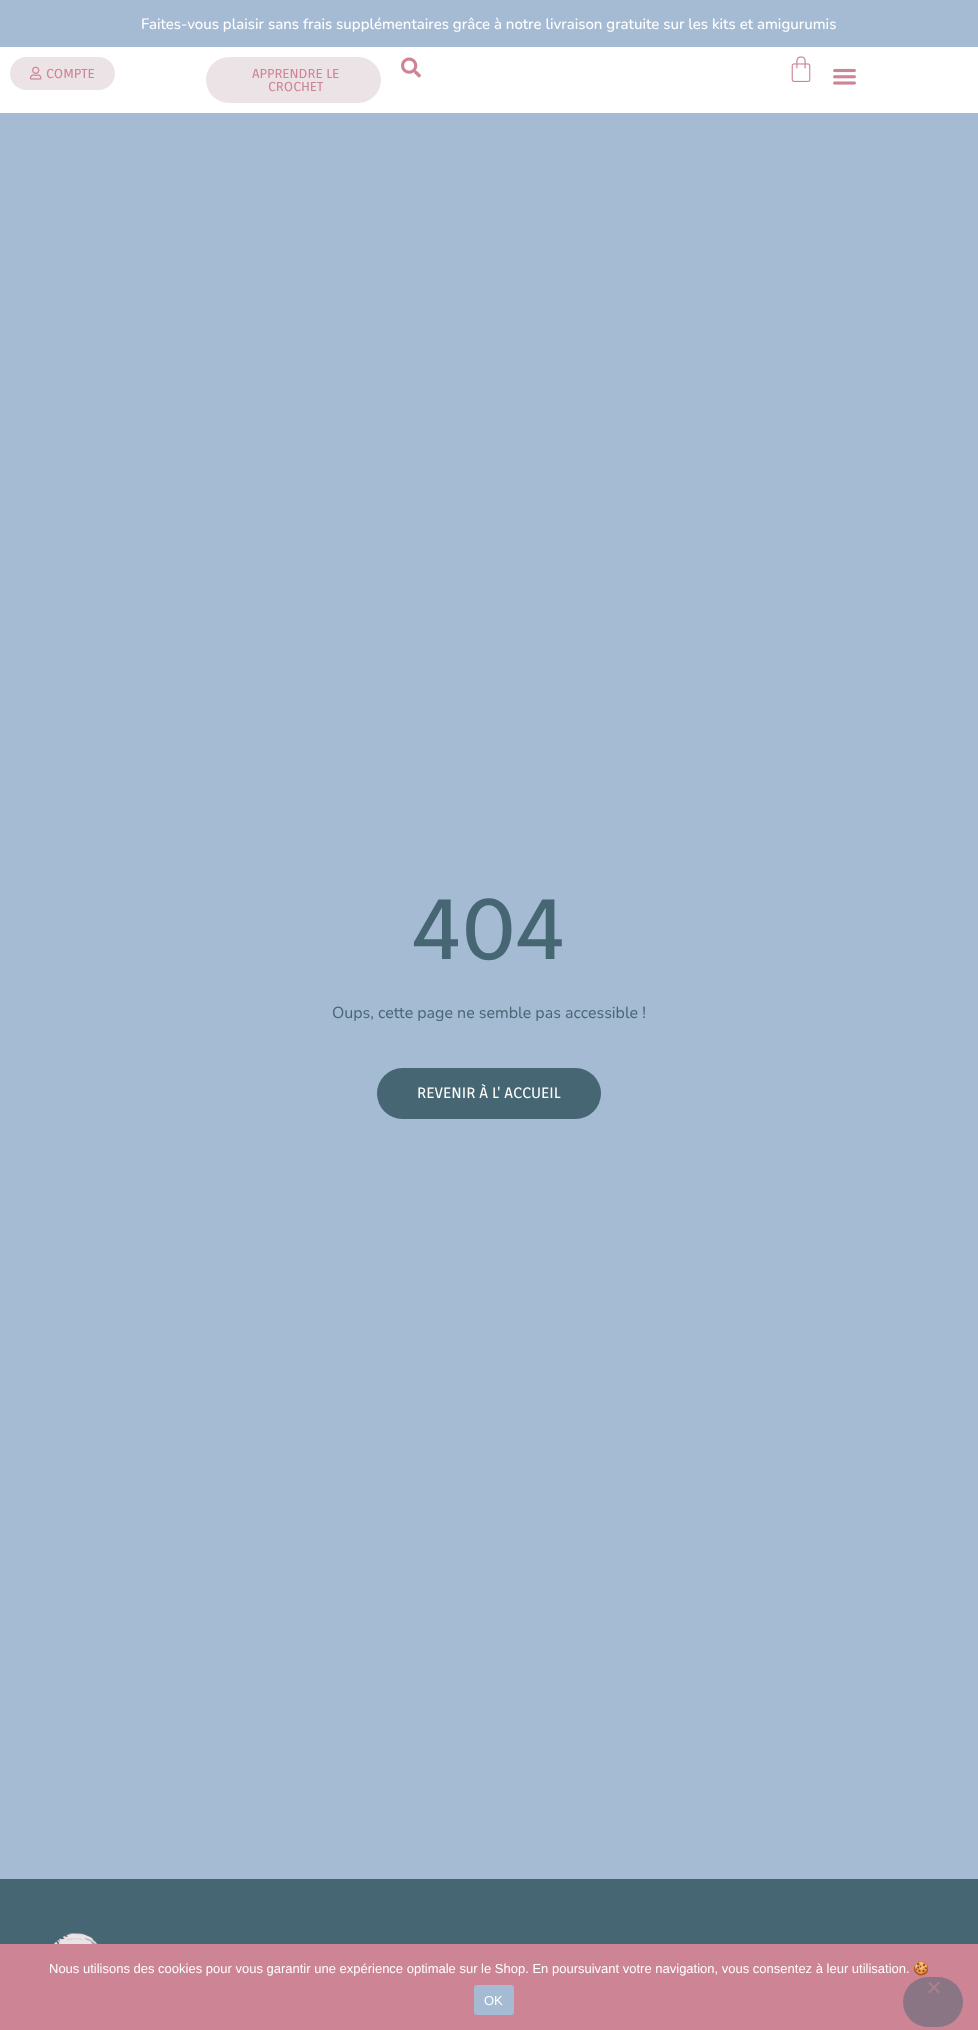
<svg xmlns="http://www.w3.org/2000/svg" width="978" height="2030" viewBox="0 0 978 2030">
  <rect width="100%" height="100%" fill="rgb(255,255,255)"/>
  <rect x="0" y="0" width="978" height="47" fill="rgb(165,187,211)"/>
  <text x="141" y="29" font-family="Nunito" font-size="15" font-weight="500" fill="rgb(255,255,255)">Faites-vous plaisir sans frais supplémentaires grâce à notre livraison gratuite sur les kits et amigurumis</text>
  <rect x="10" y="57" width="105" height="33" rx="16.5" fill="rgb(236,227,230)"/>
  <image x="30" y="66" width="12" height="14" href="pic1.png"/>
  <text x="46" y="78" font-family="Orienta" font-size="13" fill="rgb(205,132,149)">COMPTE</text>
  <rect x="206" y="57" width="175" height="46" rx="23" fill="rgb(236,227,230)"/>
  <g font-family="Orienta" font-size="13" fill="rgb(205,132,149)">
    <text x="252" y="78">APPRENDRE LE</text>
    <text x="268" y="91">CROCHET</text>
  </g>
  <image x="401" y="57" width="20" height="21" href="pic2.png"/>
  <image x="791" y="56" width="20" height="26" href="pic3.png"/>
  <image x="833" y="68" width="23" height="17" href="pic4.png"/>
  <rect x="0" y="113" width="978" height="1766" fill="rgb(165,187,211)"/>
  <text x="413" y="959" font-family="Orienta" font-size="90" fill="rgb(70,102,115)">404</text>
  <text x="332" y="1018" font-family="Nunito" font-size="16" fill="rgb(70,102,115)">Oups, cette page ne semble pas accessible !</text>
  <rect x="377" y="1068" width="224" height="51" rx="25.5" fill="rgb(70,102,115)"/>
  <text x="417" y="1098" font-family="Orienta" font-size="15" fill="rgb(255,255,255)">REVENIR À L' ACCUEIL</text>
  <rect x="0" y="1879" width="978" height="65" fill="rgb(70,102,115)"/>
  <image x="45" y="1932" width="55" height="12" href="pic5.png"/>
  <rect x="0" y="1944" width="978" height="86" fill="rgb(205,132,149)"/>
  <text x="49" y="1973" font-family="Liberation Sans" font-size="13" fill="rgb(255,255,255)">Nous utilisons des cookies pour vous garantir une expérience optimale sur le Shop. En poursuivant votre navigation, vous consentez à leur utilisation.</text>
  <text x="913" y="1973" font-family="Noto Color Emoji" font-size="13" fill="rgb(255,255,255)">🍪</text>
  <rect x="474" y="1985" width="40" height="30" rx="3" fill="rgb(165,187,211)"/>
  <text x="484" y="2005" font-family="Liberation Sans" font-size="13" fill="rgb(255,255,255)">OK</text>
  <rect x="903" y="1977" width="60" height="50" rx="25" fill="rgb(138,117,132)"/>
  <path d="M938.5 1981.5L940 1983L929.5 1993.5L928 1992Z" fill="rgb(167,130,139)"/>
  <path d="M928 1983L929.5 1981.5L940 1992L938.5 1993.5Z" fill="rgb(167,130,139)"/>
</svg>
